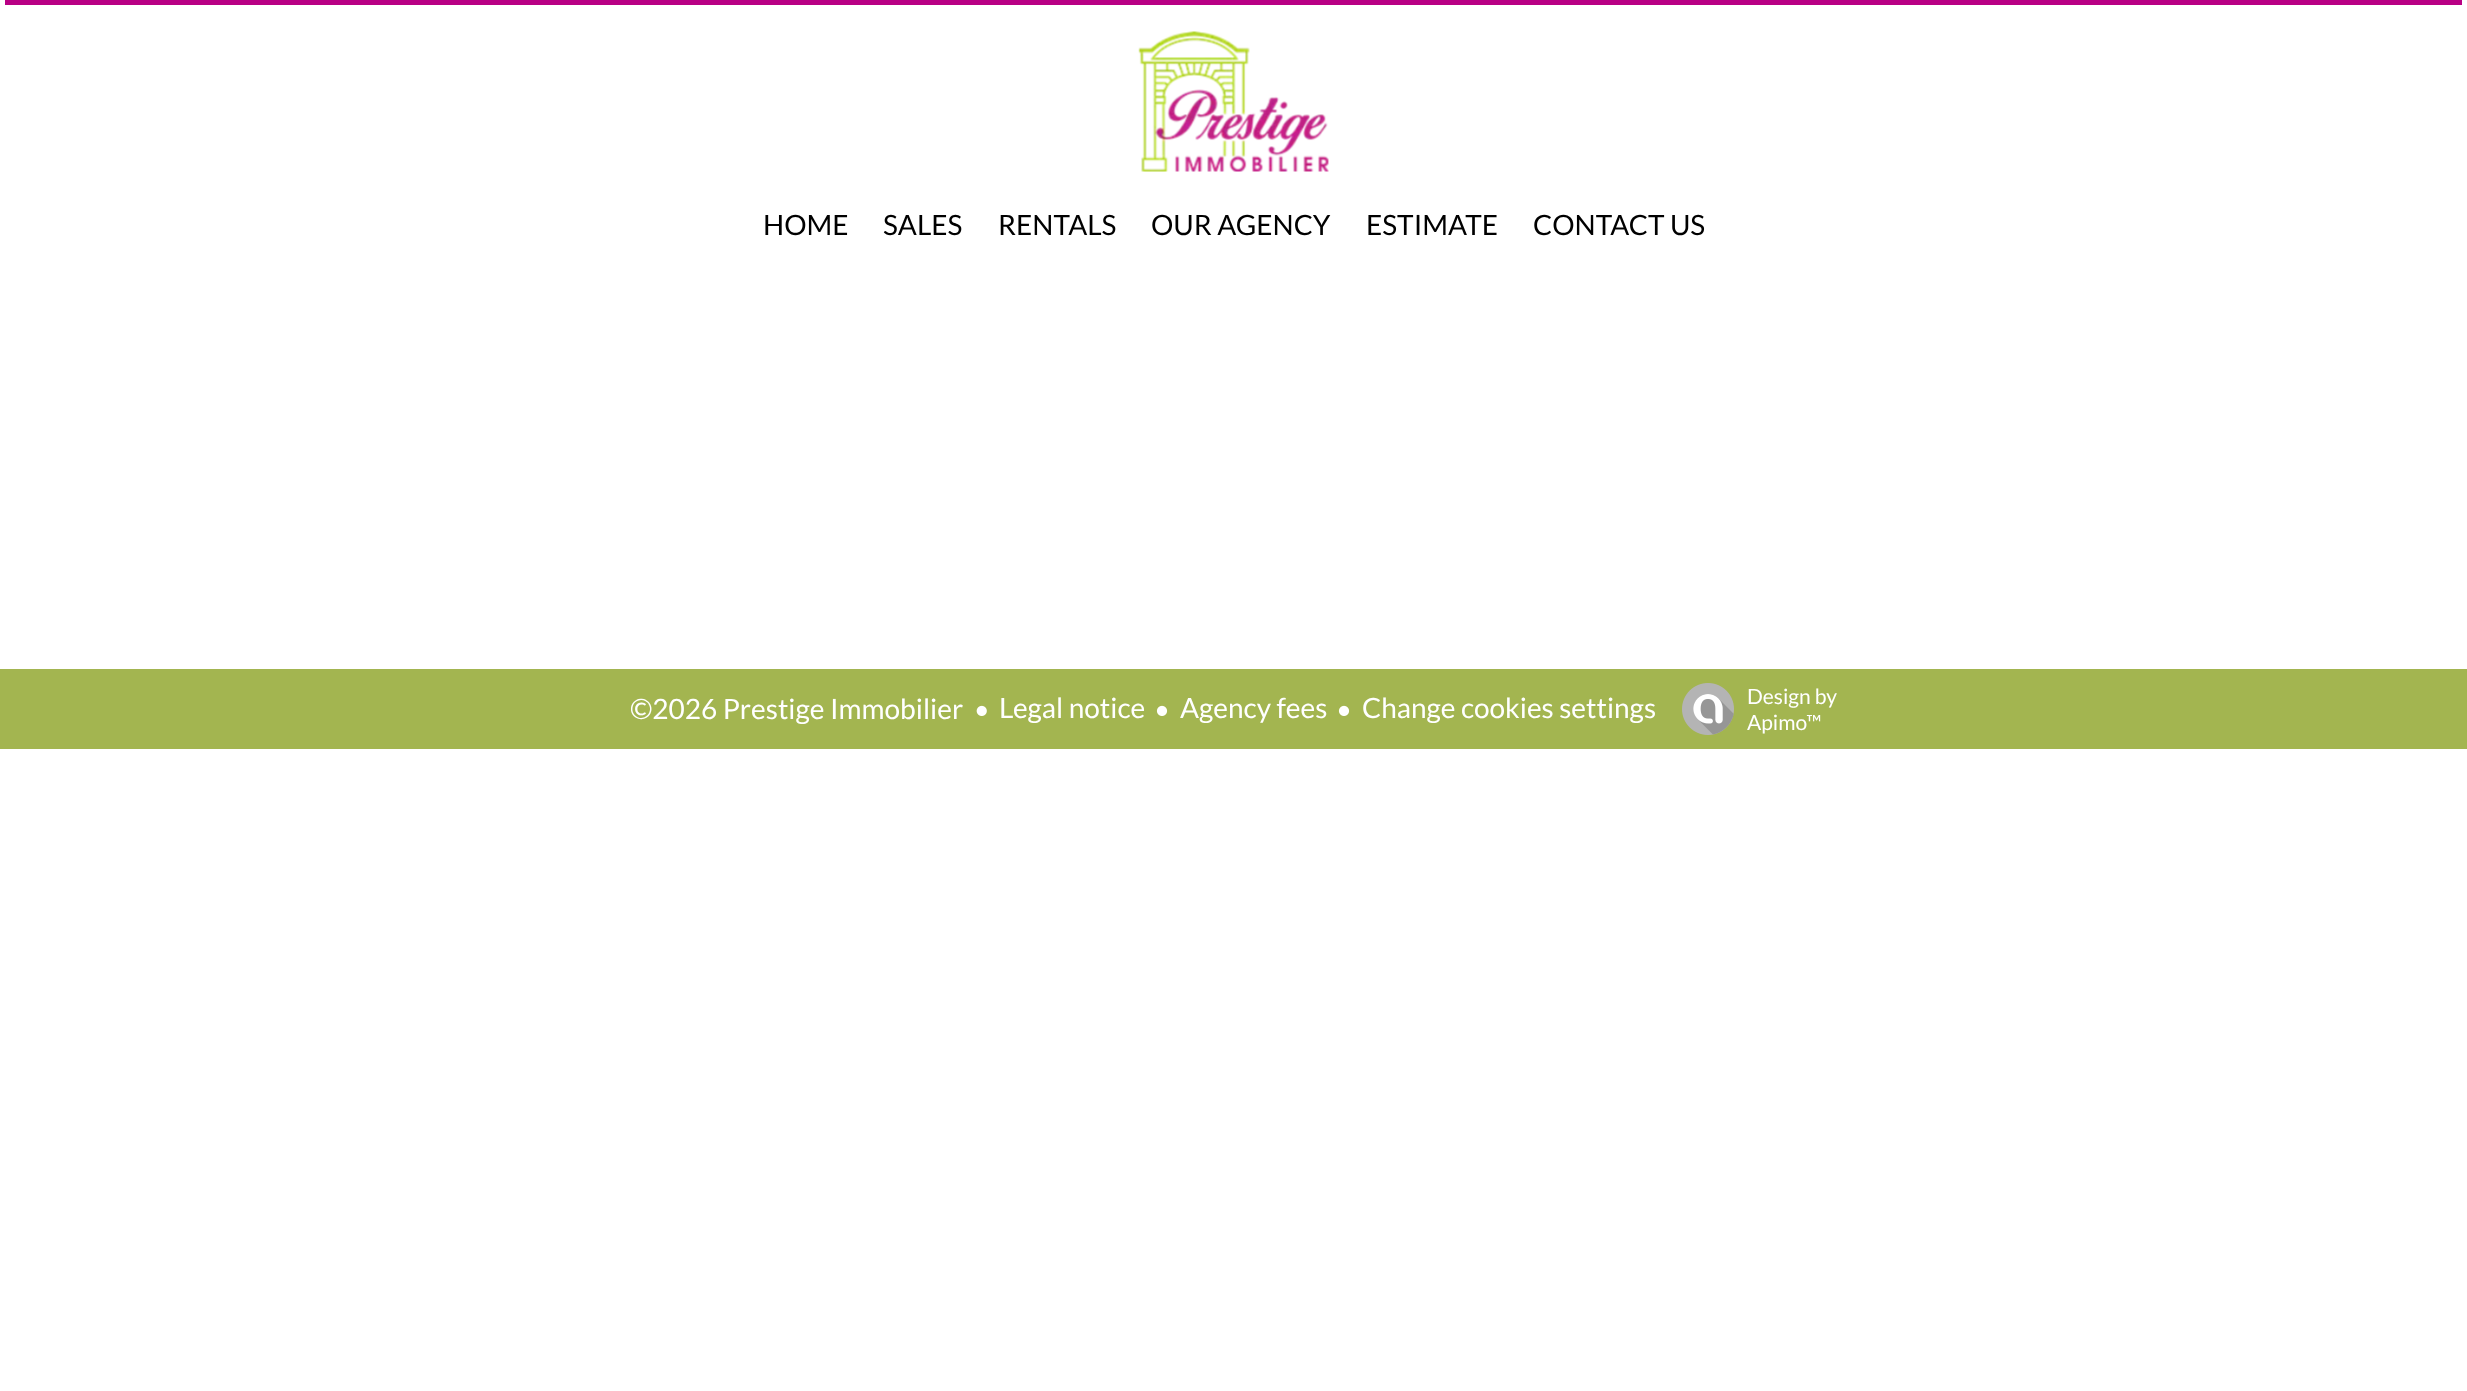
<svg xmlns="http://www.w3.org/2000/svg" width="2467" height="1391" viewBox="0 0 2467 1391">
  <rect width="100%" height="100%" fill="rgb(255,255,255)"/>
  <rect x="5" y="0" width="2457" height="5" fill="rgb(184,0,132)"/>
  <image x="1138" y="31" width="191" height="141" href="pic1.png"/>
  <g font-family="Lato" font-size="28" fill="rgb(0,0,0)">
    <text x="763" y="235">HOME</text>
    <text x="883" y="235">SALES</text>
    <text x="998" y="235">RENTALS</text>
    <text x="1151" y="235">OUR AGENCY</text>
    <text x="1366" y="235">ESTIMATE</text>
    <text x="1533" y="235">CONTACT US</text>
  </g>
  <rect x="0" y="669" width="2467" height="80" fill="rgb(163,181,80)"/>
  <text x="630" y="719" font-family="Lato" font-size="28" fill="rgb(255,255,255)">©2026 Prestige Immobilier</text>
  <image x="976" y="705" width="11" height="11" href="pic2.png"/>
  <text x="999" y="718" font-family="Lato" font-size="28" fill="rgb(255,255,255)">Legal notice</text>
  <image x="1156" y="705" width="12" height="11" href="pic3.png"/>
  <text x="1180" y="718" font-family="Lato" font-size="28" fill="rgb(255,255,255)">Agency fees</text>
  <image x="1338" y="705" width="12" height="11" href="pic3.png"/>
  <text x="1362" y="718" font-family="Lato" font-size="28" fill="rgb(255,255,255)">Change cookies settings</text>
  <image x="1682" y="683" width="52" height="52" href="pic4.png"/>
  <g font-family="Lato" font-size="21" fill="rgb(255,255,255)">
    <text>
      <tspan x="1747" y="704">Design by</tspan>
      <tspan x="1747" y="730">Apimo™</tspan>
    </text>
  </g>
</svg>
